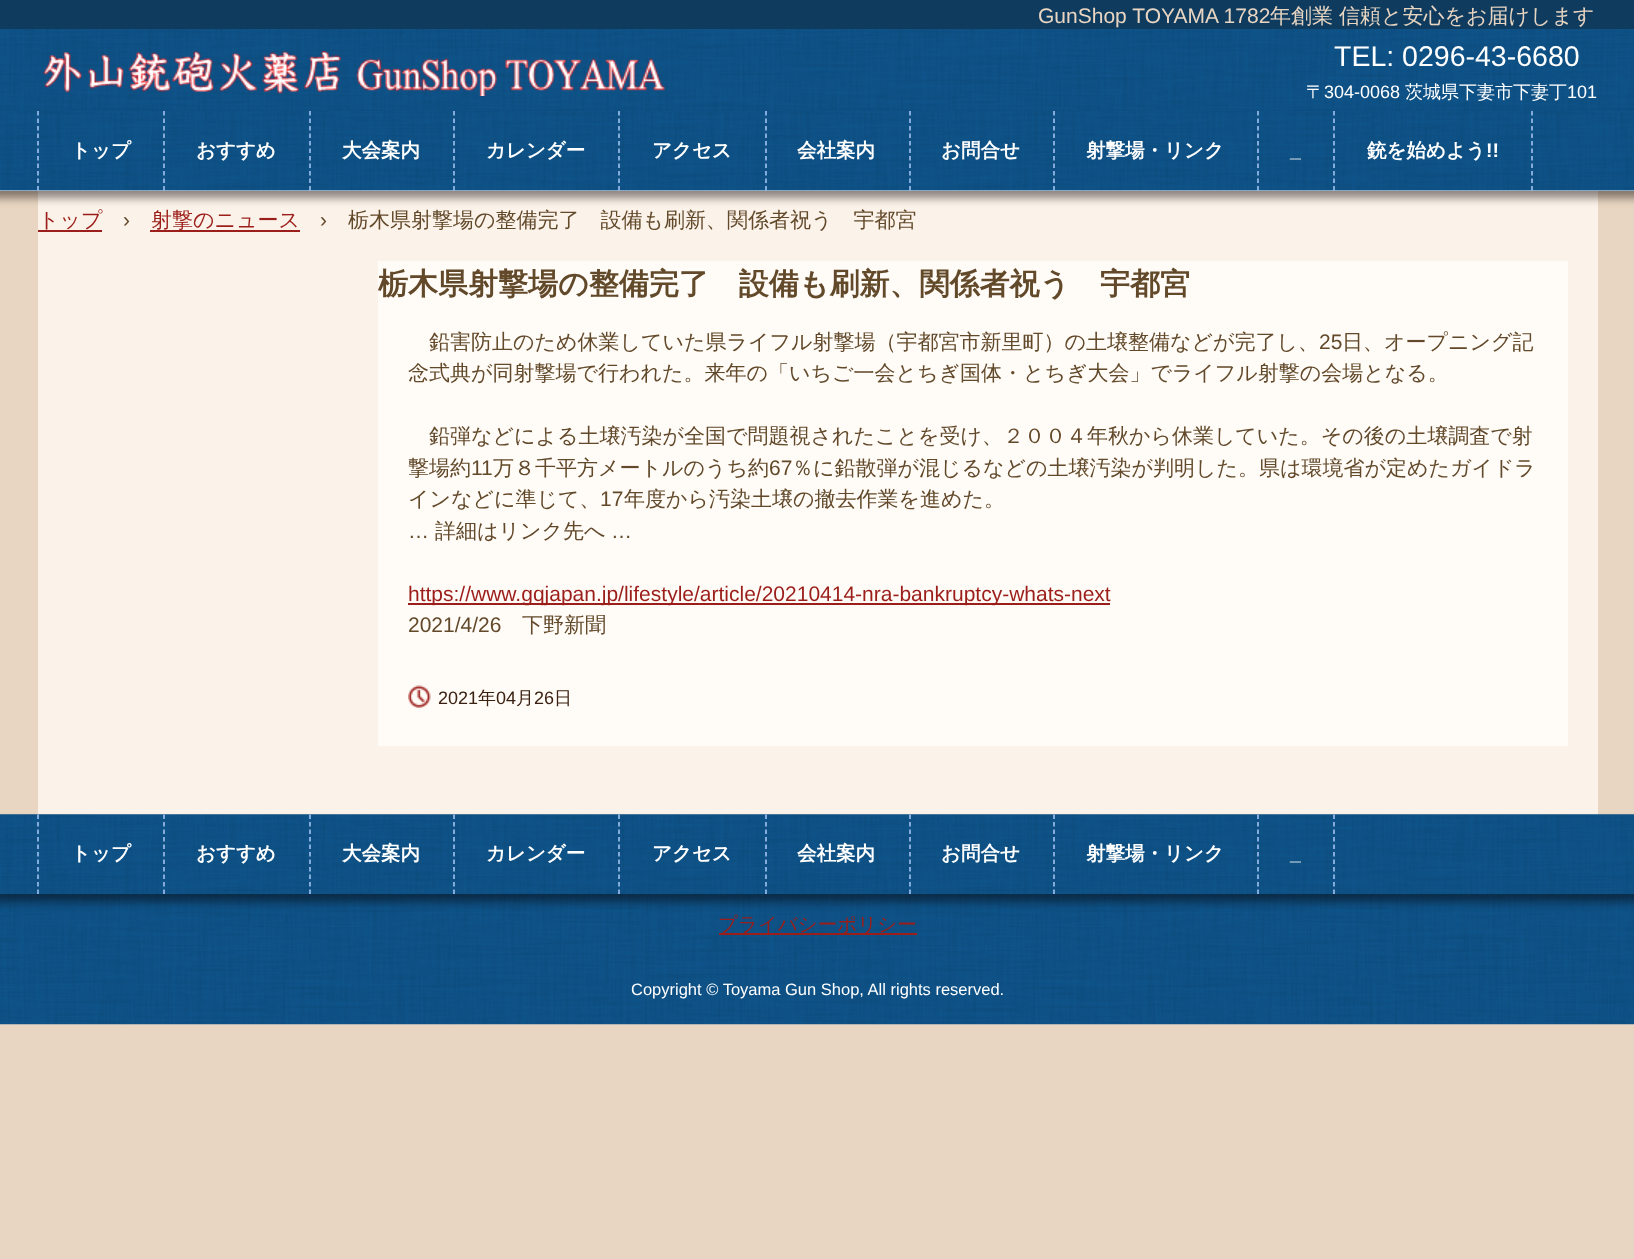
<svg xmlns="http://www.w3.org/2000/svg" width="1634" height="1259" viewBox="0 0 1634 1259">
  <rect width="100%" height="100%" fill="rgb(232,213,194)"/>
  <image x="0" y="29" width="1634" height="82" href="pic1.png"/>
  <rect x="0" y="0" width="1634" height="29" fill="rgb(14,59,94)"/>
  <text x="1038" y="23" font-family="Liberation Sans" font-size="21" fill="rgb(232,213,194)">GunShop TOYAMA 1782</text>
  <g font-family="WenQuanYi Zen Hei" font-size="21" font-weight="500" fill="rgb(232,213,194)">
    <text x="1270" y="23">年創業</text>
    <text x="1339" y="23">信頼と安心をお届けします</text>
  </g>
  <image x="43" y="51" width="622" height="45" href="pic2.png"/>
  <text x="1334" y="66" font-family="Liberation Sans" font-size="28.5" fill="rgb(255,255,255)">TEL: 0296-43-6680</text>
  <text x="1306" y="98" font-family="WenQuanYi Zen Hei" font-size="18" font-weight="500" fill="rgb(255,255,255)">〒</text>
  <text x="1324" y="98" font-family="Liberation Sans" font-size="18" fill="rgb(255,255,255)">304-0068</text>
  <text x="1405" y="98" font-family="WenQuanYi Zen Hei" font-size="18" font-weight="500" fill="rgb(255,255,255)">茨城県下妻市下妻丁</text>
  <text x="1567" y="98" font-family="Liberation Sans" font-size="18" fill="rgb(255,255,255)">101</text>
  <rect x="38" y="191" width="1560" height="624" fill="rgb(251,242,233)"/>
  <rect x="-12" y="119" width="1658" height="79" fill="rgba(6,0,1,0.45)" filter="blur(4px)"/>
  <rect x="0" y="190" width="1634" height="1" fill="rgb(255,255,255)"/>
  <image x="0" y="111" width="1634" height="80" href="pic3.png"/>
  <path d="M38 111V190.5" fill="none" stroke="rgb(171,201,247)" stroke-width="1.5" stroke-dasharray="4.5 3"/>
  <path d="M164 111V190.5" fill="none" stroke="rgb(171,201,247)" stroke-width="1.5" stroke-dasharray="4.5 3"/>
  <text x="71" y="157" font-family="WenQuanYi Zen Hei" font-size="19.5" font-weight="bold" fill="rgb(255,255,255)">トップ</text>
  <path d="M310 111V190.5" fill="none" stroke="rgb(171,201,247)" stroke-width="1.5" stroke-dasharray="4.5 3"/>
  <text x="196" y="157" font-family="WenQuanYi Zen Hei" font-size="19.5" font-weight="bold" fill="rgb(255,255,255)">おすすめ</text>
  <path d="M454 111V190.5" fill="none" stroke="rgb(171,201,247)" stroke-width="1.5" stroke-dasharray="4.5 3"/>
  <text x="342" y="157" font-family="WenQuanYi Zen Hei" font-size="19.5" font-weight="bold" fill="rgb(255,255,255)">大会案内</text>
  <path d="M619 111V190.5" fill="none" stroke="rgb(171,201,247)" stroke-width="1.5" stroke-dasharray="4.5 3"/>
  <text x="486" y="157" font-family="WenQuanYi Zen Hei" font-size="19.5" font-weight="bold" fill="rgb(255,255,255)">カレンダー</text>
  <path d="M766 111V190.5" fill="none" stroke="rgb(171,201,247)" stroke-width="1.5" stroke-dasharray="4.5 3"/>
  <text x="652" y="157" font-family="WenQuanYi Zen Hei" font-size="19.5" font-weight="bold" fill="rgb(255,255,255)">アクセス</text>
  <path d="M910 111V190.5" fill="none" stroke="rgb(171,201,247)" stroke-width="1.5" stroke-dasharray="4.5 3"/>
  <text x="797" y="157" font-family="WenQuanYi Zen Hei" font-size="19.5" font-weight="bold" fill="rgb(255,255,255)">会社案内</text>
  <path d="M1054 111V190.5" fill="none" stroke="rgb(171,201,247)" stroke-width="1.5" stroke-dasharray="4.5 3"/>
  <text x="941" y="157" font-family="WenQuanYi Zen Hei" font-size="19.5" font-weight="bold" fill="rgb(255,255,255)">お問合せ</text>
  <path d="M1258 111V190.5" fill="none" stroke="rgb(171,201,247)" stroke-width="1.5" stroke-dasharray="4.5 3"/>
  <text x="1086" y="157" font-family="WenQuanYi Zen Hei" font-size="19.5" font-weight="bold" fill="rgb(255,255,255)">射撃場・リンク</text>
  <path d="M1334 111V190.5" fill="none" stroke="rgb(171,201,247)" stroke-width="1.5" stroke-dasharray="4.5 3"/>
  <text x="1290" y="157" font-family="Liberation Sans" font-size="19.5" font-weight="bold" fill="rgb(255,255,255)">_</text>
  <path d="M1532 111V190.5" fill="none" stroke="rgb(171,201,247)" stroke-width="1.5" stroke-dasharray="4.5 3"/>
  <text x="1367" y="157" font-family="WenQuanYi Zen Hei" font-size="19.5" font-weight="bold" fill="rgb(255,255,255)">銃を始めよう</text>
  <text x="1486" y="157" font-family="Liberation Sans" font-size="19.5" font-weight="bold" fill="rgb(255,255,255)">!!</text>
  <text x="38" y="227" font-family="WenQuanYi Zen Hei" font-size="21" font-weight="500" fill="rgb(156,30,26)">トップ</text>
  <rect x="38" y="230" width="64" height="2" fill="rgb(156,30,26)"/>
  <text x="123" y="227" font-family="Liberation Sans" font-size="21" fill="rgb(98,73,42)">›</text>
  <rect x="150" y="230" width="150" height="2" fill="rgb(156,30,26)"/>
  <text x="151" y="227" font-family="WenQuanYi Zen Hei" font-size="21" font-weight="500" fill="rgb(156,30,26)">射撃のニュース</text>
  <text x="320" y="227" font-family="Liberation Sans" font-size="21" fill="rgb(98,73,42)">›</text>
  <text x="348" y="227" font-family="WenQuanYi Zen Hei" font-size="21" font-weight="500" fill="rgb(98,73,42)">栃木県射撃場の整備完了　設備も刷新、関係者祝う　宇都宮</text>
  <rect x="378" y="261" width="1190" height="485" fill="rgb(255,251,247)"/>
  <text x="378" y="294" font-family="WenQuanYi Zen Hei" font-size="30" font-weight="bold" fill="rgb(98,73,42)">栃木県射撃場の整備完了　設備も刷新、関係者祝う　宇都宮</text>
  <text x="429" y="349" font-family="WenQuanYi Zen Hei" font-size="21" font-weight="500" fill="rgb(98,73,42)">鉛害防止のため休業していた県ライフル射撃場（宇都宮市新里町）の土壌整備などが完了し、</text>
  <text x="1319" y="349" font-family="Liberation Sans" font-size="21" fill="rgb(98,73,42)">25</text>
  <g font-family="WenQuanYi Zen Hei" font-size="21" font-weight="500" fill="rgb(98,73,42)">
    <text x="1342" y="349">日、オープニング記</text>
    <text x="408" y="380">念式典が同射撃場で行われた。来年の「いちご一会とちぎ国体・とちぎ大会」でライフル射撃の会場となる。</text>
    <text x="429" y="443">鉛弾などによる土壌汚染が全国で問題視されたことを受け、２００４年秋から休業していた。その後の土壌調査で射</text>
    <text x="408" y="475">撃場約</text>
  </g>
  <text x="471" y="475" font-family="Liberation Sans" font-size="21" fill="rgb(98,73,42)">11</text>
  <text x="493" y="475" font-family="WenQuanYi Zen Hei" font-size="21" font-weight="500" fill="rgb(98,73,42)">万８千平方メートルのうち約</text>
  <text x="769" y="475" font-family="Liberation Sans" font-size="21" fill="rgb(98,73,42)">67</text>
  <g font-family="WenQuanYi Zen Hei" font-size="21" font-weight="500" fill="rgb(98,73,42)">
    <text x="792" y="475">％に鉛散弾が混じるなどの土壌汚染が判明した。県は環境省が定めたガイドラ</text>
    <text x="408" y="506">インなどに準じて、</text>
  </g>
  <text x="600" y="506" font-family="Liberation Sans" font-size="21" fill="rgb(98,73,42)">17</text>
  <text x="624" y="506" font-family="WenQuanYi Zen Hei" font-size="21" font-weight="500" fill="rgb(98,73,42)">年度から汚染土壌の撤去作業を進めた。</text>
  <text x="408" y="538" font-family="Liberation Sans" font-size="21" fill="rgb(98,73,42)">…</text>
  <text x="435" y="538" font-family="WenQuanYi Zen Hei" font-size="21" font-weight="500" fill="rgb(98,73,42)">詳細はリンク先へ</text>
  <text x="611" y="538" font-family="Liberation Sans" font-size="21" fill="rgb(98,73,42)">…</text>
  <rect x="408" y="603" width="702" height="2" fill="rgb(156,30,26)"/>
  <text x="408" y="601" font-family="Liberation Sans" font-size="21" fill="rgb(156,30,26)">https://www.gqjapan.jp/lifestyle/article/20210414-nra-bankruptcy-whats-next</text>
  <text x="408" y="632" font-family="Liberation Sans" font-size="21" fill="rgb(98,73,42)">2021/4/26</text>
  <text x="522" y="632" font-family="WenQuanYi Zen Hei" font-size="21" font-weight="500" fill="rgb(98,73,42)">下野新聞</text>
  <image x="408" y="685" width="23" height="23" href="pic4.png"/>
  <text x="438" y="704" font-family="Liberation Sans" font-size="18" fill="rgb(58,32,17)">2021</text>
  <text x="478" y="704" font-family="WenQuanYi Zen Hei" font-size="18" font-weight="500" fill="rgb(58,32,17)">年</text>
  <text x="496" y="704" font-family="Liberation Sans" font-size="18" fill="rgb(58,32,17)">04</text>
  <text x="516" y="704" font-family="WenQuanYi Zen Hei" font-size="18" font-weight="500" fill="rgb(58,32,17)">月</text>
  <text x="534" y="704" font-family="Liberation Sans" font-size="18" fill="rgb(58,32,17)">26</text>
  <text x="554" y="704" font-family="WenQuanYi Zen Hei" font-size="18" font-weight="500" fill="rgb(58,32,17)">日</text>
  <image x="0" y="814" width="1634" height="211" href="pic5.png"/>
  <rect x="-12" y="822" width="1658" height="80" fill="rgba(6,0,1,0.45)" filter="blur(4px)"/>
  <image x="0" y="814" width="1634" height="80" href="pic6.png"/>
  <path d="M38 814.5V894" fill="none" stroke="rgb(171,201,247)" stroke-width="1.5" stroke-dasharray="4.5 3"/>
  <path d="M164 814.5V894" fill="none" stroke="rgb(171,201,247)" stroke-width="1.5" stroke-dasharray="4.5 3"/>
  <text x="71" y="860" font-family="WenQuanYi Zen Hei" font-size="19.5" font-weight="bold" fill="rgb(255,255,255)">トップ</text>
  <path d="M310 814.5V894" fill="none" stroke="rgb(171,201,247)" stroke-width="1.5" stroke-dasharray="4.5 3"/>
  <text x="196" y="860" font-family="WenQuanYi Zen Hei" font-size="19.5" font-weight="bold" fill="rgb(255,255,255)">おすすめ</text>
  <path d="M454 814.5V894" fill="none" stroke="rgb(171,201,247)" stroke-width="1.5" stroke-dasharray="4.5 3"/>
  <text x="342" y="860" font-family="WenQuanYi Zen Hei" font-size="19.5" font-weight="bold" fill="rgb(255,255,255)">大会案内</text>
  <path d="M619 814.5V894" fill="none" stroke="rgb(171,201,247)" stroke-width="1.5" stroke-dasharray="4.5 3"/>
  <text x="486" y="860" font-family="WenQuanYi Zen Hei" font-size="19.5" font-weight="bold" fill="rgb(255,255,255)">カレンダー</text>
  <path d="M766 814.5V894" fill="none" stroke="rgb(171,201,247)" stroke-width="1.5" stroke-dasharray="4.5 3"/>
  <text x="652" y="860" font-family="WenQuanYi Zen Hei" font-size="19.5" font-weight="bold" fill="rgb(255,255,255)">アクセス</text>
  <path d="M910 814.5V894" fill="none" stroke="rgb(171,201,247)" stroke-width="1.5" stroke-dasharray="4.5 3"/>
  <text x="797" y="860" font-family="WenQuanYi Zen Hei" font-size="19.5" font-weight="bold" fill="rgb(255,255,255)">会社案内</text>
  <path d="M1054 814.5V894" fill="none" stroke="rgb(171,201,247)" stroke-width="1.5" stroke-dasharray="4.5 3"/>
  <text x="941" y="860" font-family="WenQuanYi Zen Hei" font-size="19.5" font-weight="bold" fill="rgb(255,255,255)">お問合せ</text>
  <path d="M1258 814.5V894" fill="none" stroke="rgb(171,201,247)" stroke-width="1.5" stroke-dasharray="4.5 3"/>
  <text x="1086" y="860" font-family="WenQuanYi Zen Hei" font-size="19.5" font-weight="bold" fill="rgb(255,255,255)">射撃場・リンク</text>
  <path d="M1334 814.5V894" fill="none" stroke="rgb(171,201,247)" stroke-width="1.5" stroke-dasharray="4.5 3"/>
  <text x="1290" y="860" font-family="Liberation Sans" font-size="19.5" font-weight="bold" fill="rgb(255,255,255)">_</text>
  <rect x="719" y="933" width="198" height="2" fill="rgb(156,30,26)"/>
  <text x="718" y="931" font-family="WenQuanYi Zen Hei" font-size="19.5" font-weight="500" fill="rgb(156,30,26)">プライバシーポリシー</text>
  <text x="631" y="995" font-family="Liberation Sans" font-size="16.5" fill="rgb(255,255,255)">Copyright © Toyama Gun Shop, All rights reserved.</text>
</svg>
